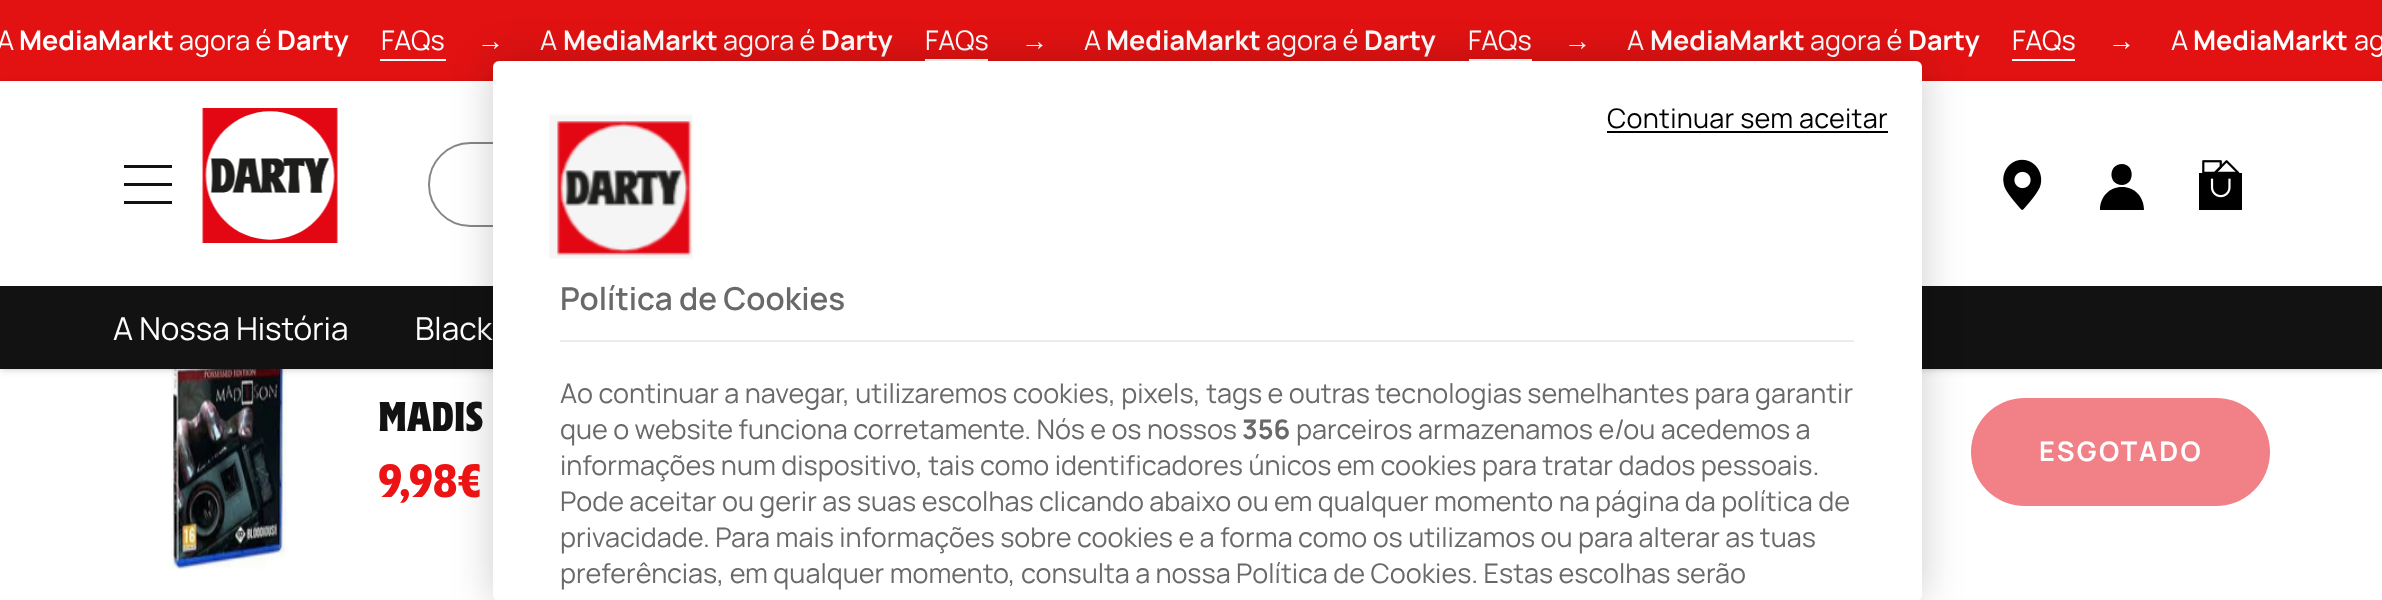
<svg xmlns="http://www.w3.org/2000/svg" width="2382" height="600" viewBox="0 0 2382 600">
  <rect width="100%" height="100%" fill="rgb(255,255,255)"/>
  <rect x="0" y="0" width="2382" height="81" fill="rgb(226,18,18)"/>
  <text x="-3" y="50" font-family="Manrope" font-size="27" fill="rgb(255,255,255)">A</text>
  <text x="19" y="50" font-family="Manrope" font-size="27" font-weight="bold" fill="rgb(255,255,255)">MediaMarkt</text>
  <text x="179" y="50" font-family="Manrope" font-size="27" fill="rgb(255,255,255)">agora é</text>
  <text x="277" y="50" font-family="Manrope" font-size="27" font-weight="bold" fill="rgb(255,255,255)">Darty</text>
  <text x="381" y="50" font-family="Manrope" font-size="27" fill="rgb(255,255,255)">FAQs</text>
  <rect x="380" y="59" width="66" height="2" fill="rgb(255,255,255)"/>
  <text x="477" y="50" font-family="Liberation Sans" font-size="27" fill="rgb(255,255,255)">→</text>
  <text x="540" y="50" font-family="Manrope" font-size="27" fill="rgb(255,255,255)">A</text>
  <text x="563" y="50" font-family="Manrope" font-size="27" font-weight="bold" fill="rgb(255,255,255)">MediaMarkt</text>
  <text x="723" y="50" font-family="Manrope" font-size="27" fill="rgb(255,255,255)">agora é</text>
  <text x="821" y="50" font-family="Manrope" font-size="27" font-weight="bold" fill="rgb(255,255,255)">Darty</text>
  <text x="925" y="50" font-family="Manrope" font-size="27" fill="rgb(255,255,255)">FAQs</text>
  <rect x="925" y="59" width="63" height="2" fill="rgb(255,255,255)"/>
  <text x="1021" y="50" font-family="Liberation Sans" font-size="27" fill="rgb(255,255,255)">→</text>
  <text x="1084" y="50" font-family="Manrope" font-size="27" fill="rgb(255,255,255)">A</text>
  <text x="1106" y="50" font-family="Manrope" font-size="27" font-weight="bold" fill="rgb(255,255,255)">MediaMarkt</text>
  <text x="1266" y="50" font-family="Manrope" font-size="27" fill="rgb(255,255,255)">agora é</text>
  <text x="1364" y="50" font-family="Manrope" font-size="27" font-weight="bold" fill="rgb(255,255,255)">Darty</text>
  <text x="1468" y="50" font-family="Manrope" font-size="27" fill="rgb(255,255,255)">FAQs</text>
  <rect x="1469" y="59" width="63" height="2" fill="rgb(255,255,255)"/>
  <text x="1564" y="50" font-family="Liberation Sans" font-size="27" fill="rgb(255,255,255)">→</text>
  <text x="1627" y="50" font-family="Manrope" font-size="27" fill="rgb(255,255,255)">A</text>
  <text x="1650" y="50" font-family="Manrope" font-size="27" font-weight="bold" fill="rgb(255,255,255)">MediaMarkt</text>
  <text x="1810" y="50" font-family="Manrope" font-size="27" fill="rgb(255,255,255)">agora é</text>
  <text x="1908" y="50" font-family="Manrope" font-size="27" font-weight="bold" fill="rgb(255,255,255)">Darty</text>
  <text x="2012" y="50" font-family="Manrope" font-size="27" fill="rgb(255,255,255)">FAQs</text>
  <rect x="2012" y="59" width="63" height="2" fill="rgb(255,255,255)"/>
  <text x="2108" y="50" font-family="Liberation Sans" font-size="27" fill="rgb(255,255,255)">→</text>
  <text x="2171" y="50" font-family="Manrope" font-size="27" fill="rgb(255,255,255)">A</text>
  <text x="2193" y="50" font-family="Manrope" font-size="27" font-weight="bold" fill="rgb(255,255,255)">MediaMarkt</text>
  <text x="2354" y="50" font-family="Manrope" font-size="27" fill="rgb(255,255,255)">ag</text>
  <image x="167" y="369" width="120" height="201" href="pic5.png"/>
  <rect x="2" y="86" width="2379" height="283" fill="rgba(0,0,0,0.1)" filter="blur(2px)"/>
  <rect x="0" y="83" width="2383" height="288" fill="rgba(0,0,0,0.1)" filter="blur(3.5px)"/>
  <rect x="0" y="81" width="2382" height="205" fill="rgb(255,255,255)"/>
  <path d="M172 168H124V165H172ZM172 204H124V201H172ZM124 186H172V183H124Z" fill="rgb(18,18,18)" fill-rule="evenodd"/>
  <image x="202" y="108" width="136" height="135" href="pic1.png"/>
  <rect x="429" y="143" width="970" height="83" rx="41.5" fill="none" stroke="rgb(139,133,134)" stroke-width="2"/>
  <image x="2003" y="159" width="39" height="51" href="pic2.png"/>
  <path d="M2122 187C2135 187 2144 197 2144 210H2100C2100 197 2109 187 2122 187ZM2122 164C2135 164 2135 185 2122 185C2108 185 2108 164 2122 164Z" fill="rgb(0,0,0)"/>
  <image x="2199" y="160" width="43" height="50" href="pic3.png"/>
  <rect x="0" y="286" width="2382" height="83" fill="rgb(18,18,18)"/>
  <g font-family="Manrope" font-size="31.5" fill="rgb(255,255,255)">
    <text x="113" y="340">A Nossa História</text>
    <text x="415" y="340">Black</text>
  </g>
  <rect x="1971" y="398" width="299" height="108" rx="54" fill="rgb(241,128,135)"/>
  <rect x="493" y="61" width="1429" height="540" rx="6" fill="rgba(0,0,0,0.2)" filter="blur(20px)"/>
  <rect x="493" y="61" width="1429" height="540" rx="6" fill="rgb(255,255,255)"/>
  <text x="1607" y="128" font-family="Manrope" font-size="27" letter-spacing="0.25" fill="rgb(0,0,0)">Continuar sem aceitar</text>
  <rect x="1607" y="131" width="281" height="2" fill="rgb(0,0,0)"/>
  <image x="549" y="114" width="144" height="145" href="pic4.png"/>
  <text x="560" y="310" font-family="Manrope" font-size="31.5" font-weight="600" fill="rgb(105,105,105)">Política de Cookies</text>
  <rect x="560" y="340" width="1294" height="2" fill="rgb(236,236,236)"/>
  <g font-family="Manrope" font-size="27" fill="rgb(105,105,105)">
    <text>
      <tspan x="560" y="403">Ao continuar a navegar, utilizaremos cookies, pixels, tags e outras tecnologias semelhantes para garantir</tspan>
      <tspan x="560" y="439">que o website funciona corretamente. Nós e os nossos</tspan>
    </text>
  </g>
  <text x="1242" y="439" font-family="Manrope" font-size="27" font-weight="bold" fill="rgb(105,105,105)">356</text>
  <g font-family="Manrope" font-size="27" fill="rgb(105,105,105)">
    <text x="1296" y="439">parceiros armazenamos e/ou acedemos a</text>
    <text>
      <tspan x="560" y="475">informações num dispositivo, tais como identificadores únicos em cookies para tratar dados pessoais.</tspan>
      <tspan x="560" y="511">Pode aceitar ou gerir as suas escolhas clicando abaixo ou em qualquer momento na página da política de</tspan>
      <tspan x="560" y="547">privacidade. Para mais informações sobre cookies e a forma como os utilizamos ou para alterar as tuas</tspan>
      <tspan x="560" y="583">preferências, em qualquer momento, consulta a nossa Política de Cookies. Estas escolhas serão</tspan>
    </text>
  </g>
  <text x="378" y="431" font-family="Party" font-size="36" font-weight="900" fill="rgb(18,18,18)">Madis</text>
  <text x="378" y="497" font-family="Party" font-size="40.5" font-weight="bold" fill="rgb(235,19,19)">9,98€</text>
  <text x="2039" y="461" font-family="Manrope" font-size="27" font-weight="bold" letter-spacing="2.25" fill="rgb(255,255,255)">ESGOTADO</text>
</svg>
